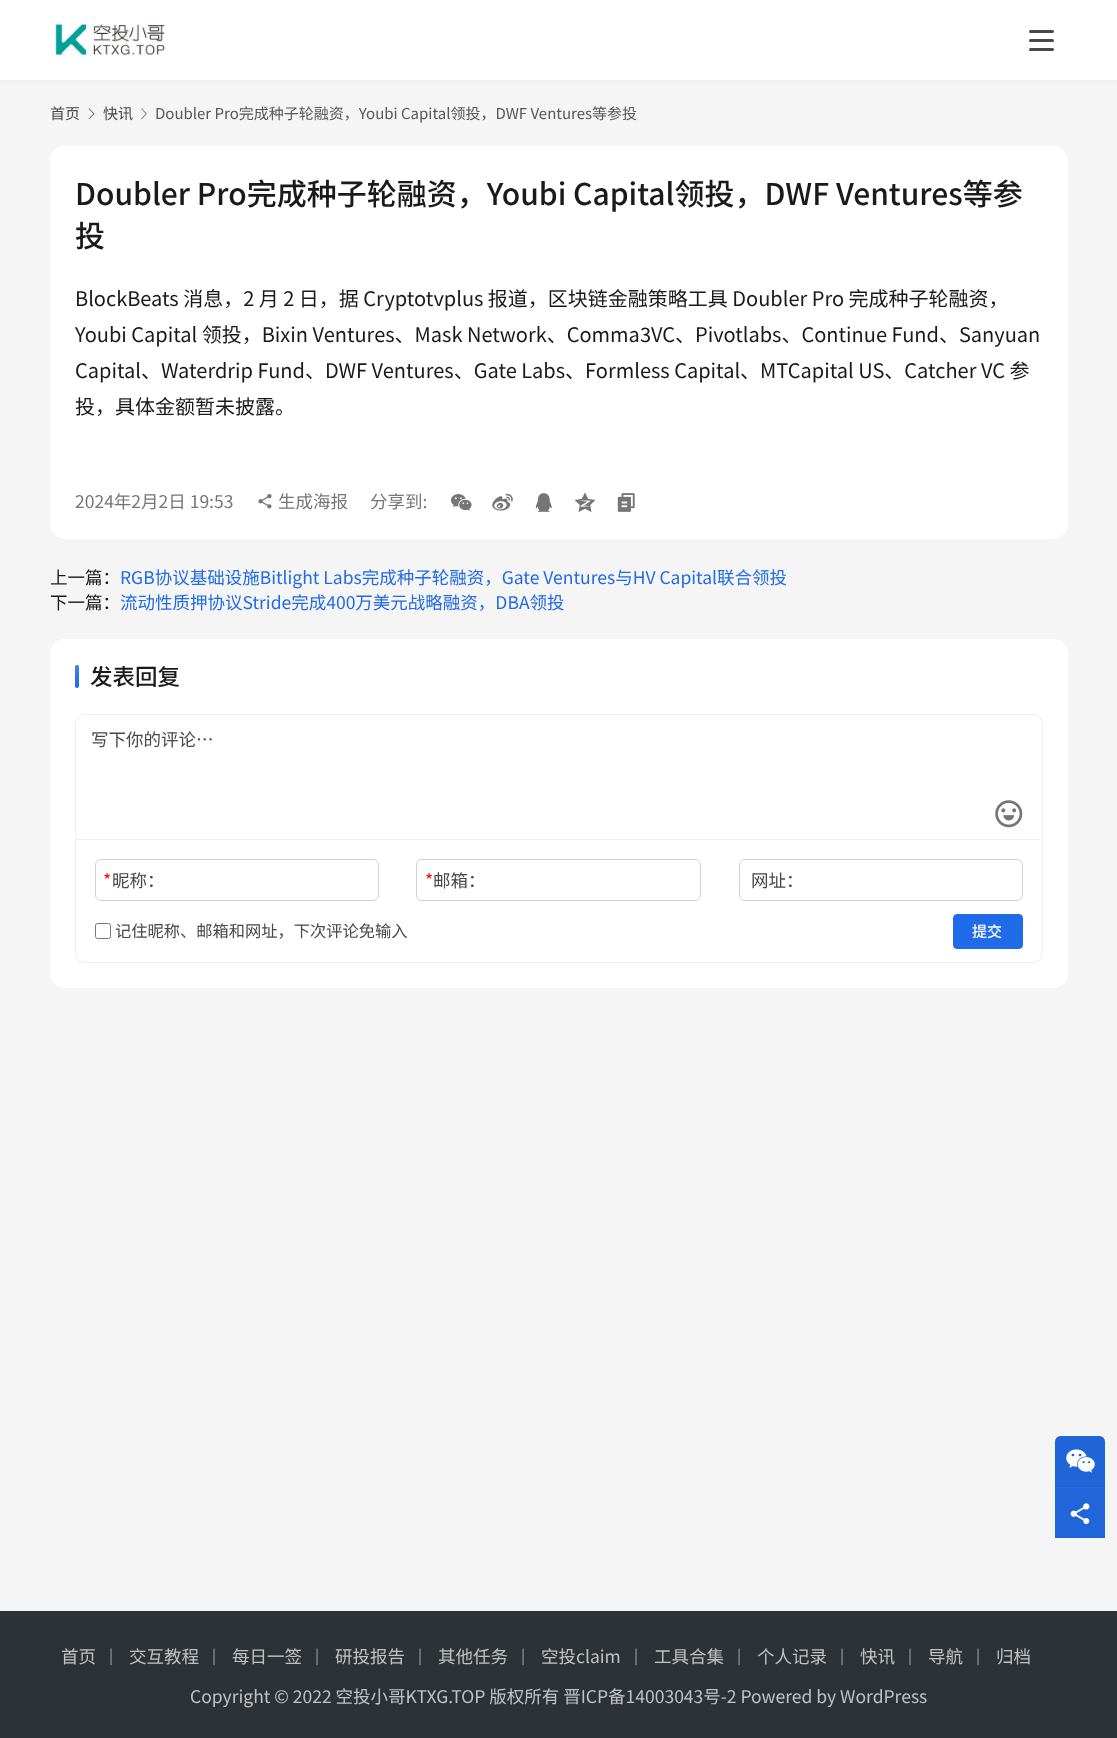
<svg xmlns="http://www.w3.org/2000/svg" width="1117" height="1738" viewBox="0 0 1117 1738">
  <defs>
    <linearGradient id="g1" gradientUnits="userSpaceOnUse" x1="77" y1="665" x2="77" y2="688"><stop offset="0" stop-color="rgb(255,255,255)" stop-opacity="0.15"/><stop offset="1" stop-color="rgb(255,255,255)" stop-opacity="0"/></linearGradient>
  </defs>
  <rect width="100%" height="100%" fill="rgb(245,245,245)"/>
  <rect x="-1" y="-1" width="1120" height="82" fill="rgba(26,26,26,0.06)" filter="blur(2px)"/>
  <rect x="0" y="0" width="1117" height="80" fill="rgb(255,255,255)"/>
  <image x="55" y="24" width="111" height="32" href="pic1.png"/>
  <rect x="1029" y="30" width="25" height="3" rx="1.5" fill="rgb(72,72,72)"/>
  <rect x="1029" y="39" width="25" height="3" rx="1.5" fill="rgb(72,72,72)"/>
  <rect x="1029" y="48" width="25" height="3" rx="1.5" fill="rgb(72,72,72)"/>
  <text x="50" y="119" font-family="Noto Sans CJK SC" font-size="15" fill="rgb(72,72,72)">首页</text>
  <image x="88" y="108" width="7" height="12" href="pic2.png"/>
  <text x="103" y="119" font-family="Noto Sans CJK SC" font-size="15" fill="rgb(72,72,72)">快讯</text>
  <image x="141" y="108" width="6" height="12" href="pic3.png"/>
  <text x="155" y="119" font-family="Noto Sans CJK SC" font-size="15" fill="rgb(87,87,87)">Doubler Pro完成种子轮融资，Youbi Capital领投，DWF Ventures等参投</text>
  <rect x="50" y="146" width="1018" height="393" rx="15" fill="rgb(255,255,255)"/>
  <g font-family="Noto Sans CJK SC" font-size="30" font-weight="500" fill="rgb(26,26,26)">
    <text>
      <tspan x="75" y="205">Doubler Pro完成种子轮融资，Youbi Capital领投，DWF Ventures等参</tspan>
      <tspan x="75" y="247">投</tspan>
    </text>
  </g>
  <g font-family="Noto Sans CJK SC" font-size="20" fill="rgb(26,26,26)">
    <text>
      <tspan x="75" y="306">BlockBeats 消息，2 月 2 日，据 Cryptotvplus 报道，区块链金融策略工具 Doubler Pro 完成种子轮融资，</tspan>
      <tspan x="75" y="342">Youbi Capital 领投，Bixin Ventures、Mask Network、Comma3VC、Pivotlabs、Continue Fund、Sanyuan</tspan>
      <tspan x="75" y="378">Capital、Waterdrip Fund、DWF Ventures、Gate Labs、Formless Capital、MTCapital US、Catcher VC 参</tspan>
      <tspan x="75" y="414">投，具体金额暂未披露。</tspan>
    </text>
  </g>
  <text x="75" y="508" font-family="Noto Sans CJK SC" font-size="17.5" fill="rgb(118,118,118)">2024年2月2日 19:53</text>
  <image x="258" y="494" width="14" height="15" href="pic4.png"/>
  <g font-family="Noto Sans CJK SC" font-size="17.5" fill="rgb(118,118,118)">
    <text x="278" y="508">生成海报</text>
    <text x="370" y="508">分享到:</text>
  </g>
  <image x="451" y="494" width="21" height="17" href="pic5.png"/>
  <image x="492" y="493" width="21" height="18" href="pic6.png"/>
  <image x="535" y="493" width="17" height="19" href="pic7.png"/>
  <image x="574" y="492" width="22" height="20" href="pic8.png"/>
  <image x="617" y="493" width="18" height="19" href="pic9.png"/>
  <text x="50" y="584" font-family="Noto Sans CJK SC" font-size="17.5" fill="rgb(26,26,26)">上一篇：</text>
  <text x="120" y="584" font-family="Noto Sans CJK SC" font-size="17.5" fill="rgb(32,107,231)">RGB协议基础设施Bitlight Labs完成种子轮融资，Gate Ventures与HV Capital联合领投</text>
  <text x="50" y="609" font-family="Noto Sans CJK SC" font-size="17.5" fill="rgb(26,26,26)">下一篇：</text>
  <text x="120" y="609" font-family="Noto Sans CJK SC" font-size="17.5" fill="rgb(32,107,231)">流动性质押协议Stride完成400万美元战略融资，DBA领投</text>
  <rect x="50" y="639" width="1018" height="349" rx="15" fill="rgb(255,255,255)"/>
  <rect x="75" y="665" width="4" height="23" rx="2" fill="rgb(32,107,231)"/>
  <rect x="75" y="665" width="4" height="23" rx="2" fill="url(#g1)"/>
  <text x="90" y="685" font-family="Noto Sans CJK SC" font-size="22.5" font-weight="500" fill="rgb(26,26,26)">发表回复</text>
  <rect x="75.5" y="714.5" width="967" height="248" rx="9.5" fill="none" stroke="rgb(239,239,239)"/>
  <rect x="76" y="839" width="965" height="1" fill="rgb(239,239,239)"/>
  <text x="91" y="746" font-family="Noto Sans CJK SC" font-size="17.5" fill="rgb(72,72,72)">写下你的评论…</text>
  <image x="995" y="800" width="28" height="28" href="pic10.png"/>
  <rect x="95.5" y="859.5" width="283" height="41" rx="5.5" fill="none" stroke="rgb(209,209,209)"/>
  <text x="103" y="887" font-family="Noto Sans CJK SC" font-size="17.5" fill="rgb(255,0,0)">*</text>
  <text x="112" y="887" font-family="Noto Sans CJK SC" font-size="17.5" fill="rgb(72,72,72)">昵称：</text>
  <rect x="416.5" y="859.5" width="284" height="41" rx="5.5" fill="none" stroke="rgb(209,209,209)"/>
  <text x="425" y="887" font-family="Noto Sans CJK SC" font-size="17.5" fill="rgb(255,0,0)">*</text>
  <text x="433" y="887" font-family="Noto Sans CJK SC" font-size="17.5" fill="rgb(72,72,72)">邮箱：</text>
  <rect x="739.5" y="859.5" width="283" height="41" rx="5.5" fill="none" stroke="rgb(209,209,209)"/>
  <text x="751" y="887" font-family="Noto Sans CJK SC" font-size="17.5" fill="rgb(72,72,72)">网址：</text>
  <rect x="95.5" y="923.5" width="15" height="15" rx="2" fill="none" stroke="rgb(118,118,118)"/>
  <text x="115" y="937" font-family="Noto Sans CJK SC" font-size="16.25" fill="rgb(72,72,72)">记住昵称、邮箱和网址，下次评论免输入</text>
  <rect x="953.5" y="914.5" width="69" height="34" rx="3.5" fill="rgb(32,107,231)" stroke="rgb(32,107,231)"/>
  <text x="972" y="937" font-family="Noto Sans CJK SC" font-size="15" font-weight="500" fill="rgb(255,255,255)">提交</text>
  <path d="M1061 1436H1099C1102.5 1436 1105 1438.5 1105 1442V1486H1055V1442C1055 1438.5 1057.5 1436 1061 1436Z" fill="rgb(32,107,231)"/>
  <path d="M1061 1436H1099C1102.5 1436 1105 1438.5 1105 1442V1486H1055V1442C1055 1438.5 1057.5 1436 1061 1436Z" fill="rgba(26,26,26,0.07)"/>
  <image x="1066" y="1449" width="29" height="24" href="pic11.png"/>
  <rect x="1055" y="1487" width="50" height="1" fill="rgb(32,107,231)"/>
  <rect x="1055" y="1486" width="50" height="1" fill="rgb(31,99,211)"/>
  <rect x="1055" y="1488" width="50" height="50" fill="rgb(32,101,217)"/>
  <image x="1070" y="1503" width="20" height="22" href="pic12.png"/>
  <rect x="0" y="1611" width="1117" height="127" fill="rgb(45,50,54)"/>
  <text x="61" y="1663" font-family="Noto Sans CJK SC" font-size="17.5" fill="rgb(192,194,195)">首页</text>
  <text x="109" y="1661" font-family="Noto Sans CJK SC" font-size="15" fill="rgb(163,165,167)">|</text>
  <text x="129" y="1663" font-family="Noto Sans CJK SC" font-size="17.5" fill="rgb(192,194,195)">交互教程</text>
  <text x="212" y="1661" font-family="Noto Sans CJK SC" font-size="15" fill="rgb(163,165,167)">|</text>
  <text x="232" y="1663" font-family="Noto Sans CJK SC" font-size="17.5" fill="rgb(192,194,195)">每日一签</text>
  <text x="315" y="1661" font-family="Noto Sans CJK SC" font-size="15" fill="rgb(163,165,167)">|</text>
  <text x="335" y="1663" font-family="Noto Sans CJK SC" font-size="17.5" fill="rgb(192,194,195)">研投报告</text>
  <text x="418" y="1661" font-family="Noto Sans CJK SC" font-size="15" fill="rgb(163,165,167)">|</text>
  <text x="438" y="1663" font-family="Noto Sans CJK SC" font-size="17.5" fill="rgb(192,194,195)">其他任务</text>
  <text x="521" y="1661" font-family="Noto Sans CJK SC" font-size="15" fill="rgb(163,165,167)">|</text>
  <text x="541" y="1663" font-family="Noto Sans CJK SC" font-size="17.5" fill="rgb(192,194,195)">空投claim</text>
  <text x="634" y="1661" font-family="Noto Sans CJK SC" font-size="15" fill="rgb(163,165,167)">|</text>
  <text x="654" y="1663" font-family="Noto Sans CJK SC" font-size="17.5" fill="rgb(192,194,195)">工具合集</text>
  <text x="737" y="1661" font-family="Noto Sans CJK SC" font-size="15" fill="rgb(163,165,167)">|</text>
  <text x="757" y="1663" font-family="Noto Sans CJK SC" font-size="17.5" fill="rgb(192,194,195)">个人记录</text>
  <text x="840" y="1661" font-family="Noto Sans CJK SC" font-size="15" fill="rgb(163,165,167)">|</text>
  <text x="860" y="1663" font-family="Noto Sans CJK SC" font-size="17.5" fill="rgb(192,194,195)">快讯</text>
  <text x="908" y="1661" font-family="Noto Sans CJK SC" font-size="15" fill="rgb(163,165,167)">|</text>
  <text x="928" y="1663" font-family="Noto Sans CJK SC" font-size="17.5" fill="rgb(192,194,195)">导航</text>
  <text x="976" y="1661" font-family="Noto Sans CJK SC" font-size="15" fill="rgb(163,165,167)">|</text>
  <g font-family="Noto Sans CJK SC" font-size="17.5" fill="rgb(192,194,195)">
    <text x="996" y="1663">归档</text>
    <text x="190" y="1703">Copyright © 2022 空投小哥KTXG.TOP 版权所有 晋ICP备14003043号-2 Powered by WordPress</text>
  </g>
</svg>
